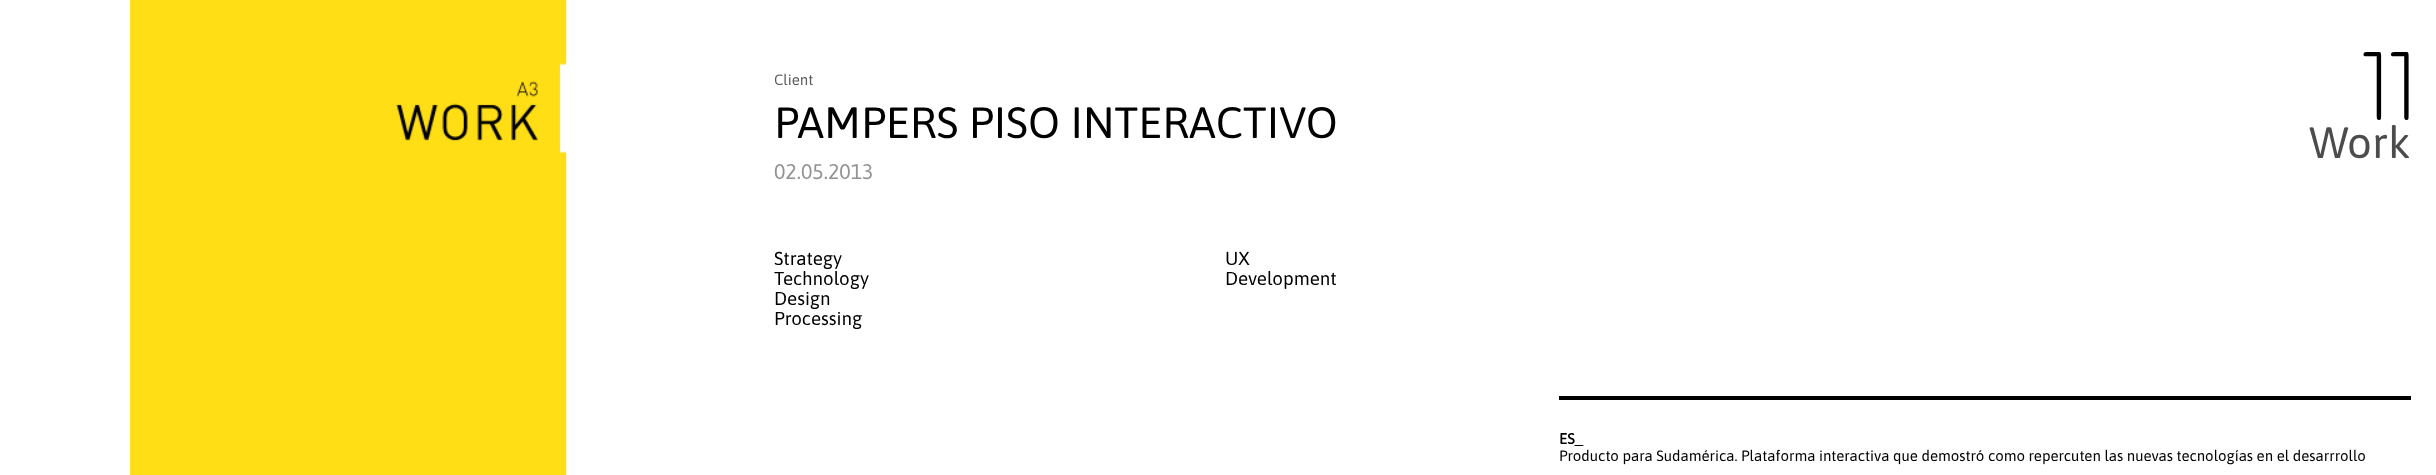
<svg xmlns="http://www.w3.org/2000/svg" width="2436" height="475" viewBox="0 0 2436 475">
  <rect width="100%" height="100%" fill="rgb(255,255,255)"/>
  <image x="129" y="0" width="438" height="475" href="pic1.png"/>
  <text x="774" y="85" font-family="Asap" font-size="15" fill="rgb(92,92,92)">Client</text>
  <text x="774" y="138" font-family="Asap" font-size="43.75" fill="rgb(0,0,0)">PAMPERS PISO INTERACTIVO</text>
  <text x="774" y="179" font-family="Asap" font-size="21.25" fill="rgb(148,146,146)">02.05.2013</text>
  <text x="2362" y="120" font-family="Gruppo" font-size="125" fill="rgb(0,0,0)">11</text>
  <text x="2309" y="158" font-family="Asap" font-size="43.75" fill="rgb(77,76,76)">Work</text>
  <g font-family="Asap" font-size="18.75" fill="rgb(0,0,0)">
    <text>
      <tspan x="774" y="265">Strategy</tspan>
      <tspan x="774" y="285">Technology</tspan>
      <tspan x="774" y="305">Design</tspan>
      <tspan x="774" y="325">Processing</tspan>
    </text>
    <text>
      <tspan x="1225" y="265">UX</tspan>
      <tspan x="1225" y="285">Development</tspan>
    </text>
  </g>
  <rect x="1559" y="396" width="852" height="4" fill="rgb(0,0,0)"/>
  <text x="1559" y="444" font-family="Asap" font-size="15" font-weight="bold" fill="rgb(0,0,0)">ES_</text>
  <text x="1559" y="461" font-family="Asap" font-size="15" fill="rgb(0,0,0)">Producto para Sudamérica. Plataforma interactiva que demostró como repercuten las nuevas tecnologías en el desarrrollo</text>
</svg>
